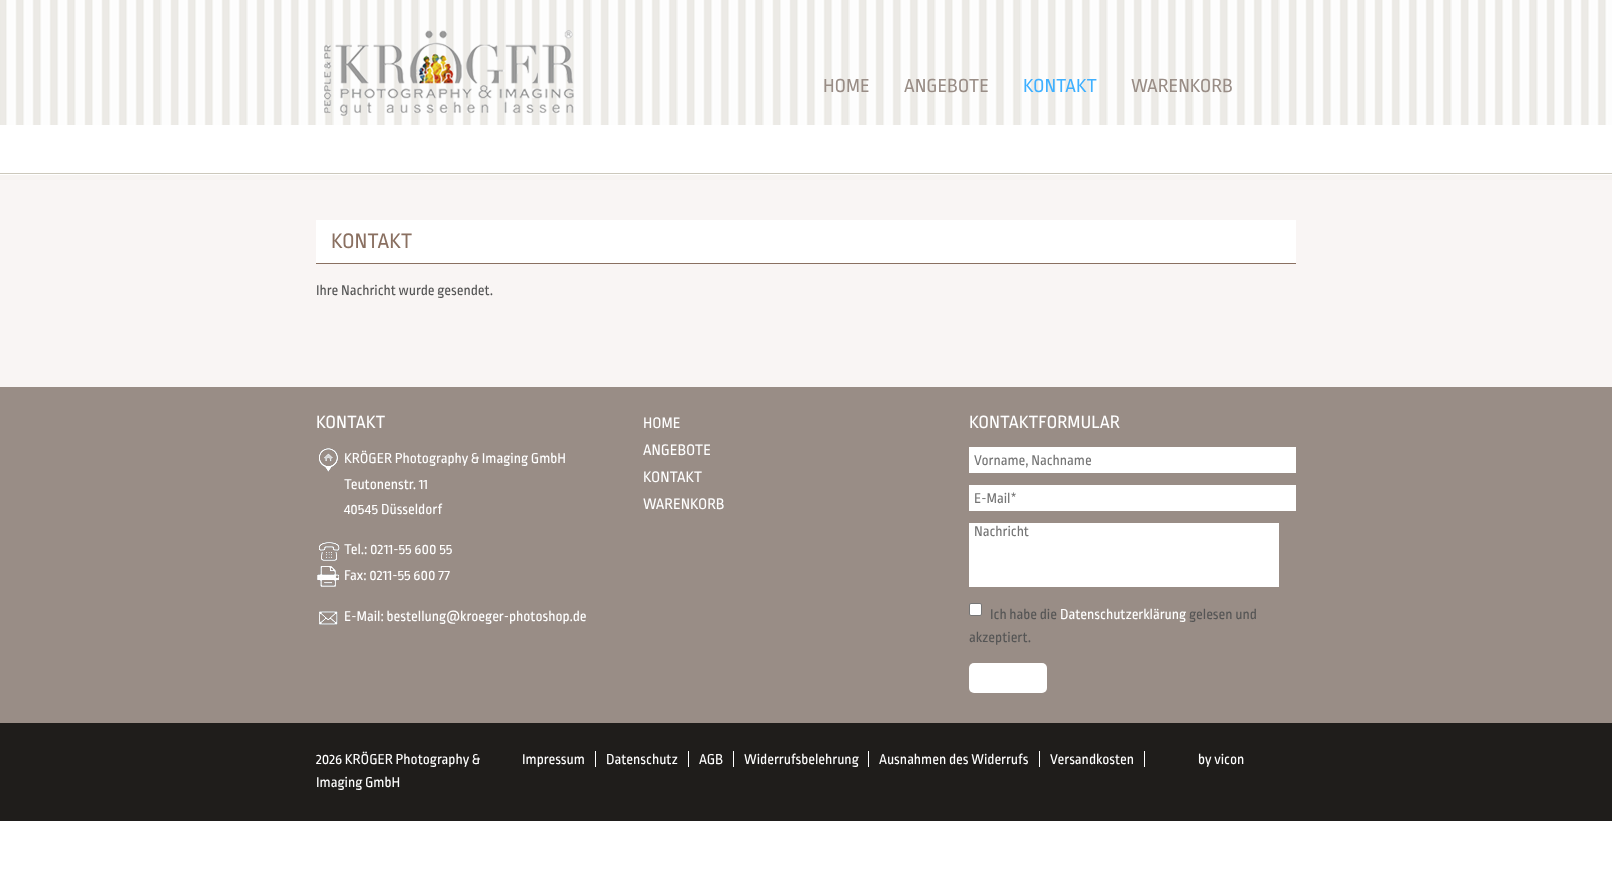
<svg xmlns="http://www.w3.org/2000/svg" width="1612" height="888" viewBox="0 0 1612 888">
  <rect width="100%" height="100%" fill="rgb(255,255,255)"/>
  <rect x="0" y="180" width="1612" height="207" fill="rgb(249,245,244)"/>
  <rect x="0" y="175" width="1612" height="5" fill="rgb(246,243,241)"/>
  <image x="0" y="0" width="1612" height="175" href="pic1.png"/>
  <image x="324" y="30" width="250" height="86" href="pic2.png"/>
  <g font-family="Ropa Sans" font-size="20" fill="rgb(153,141,134)">
    <text x="823" y="92">HOME</text>
    <text x="904" y="92">ANGEBOTE</text>
  </g>
  <text x="1023" y="92" font-family="Ropa Sans" font-size="20" fill="rgb(63,176,255)">KONTAKT</text>
  <text x="1131" y="92" font-family="Ropa Sans" font-size="20" fill="rgb(153,141,134)">WARENKORB</text>
  <rect x="316" y="220" width="980" height="43" fill="rgb(255,255,255)"/>
  <rect x="316" y="263" width="980" height="1" fill="rgb(138,112,97)"/>
  <text x="331" y="248" font-family="Ropa Sans" font-size="22" fill="rgb(138,112,97)">KONTAKT</text>
  <text x="316" y="295" font-family="Ropa Sans" font-size="15" fill="rgb(85,85,85)">Ihre Nachricht wurde gesendet.</text>
  <rect x="0" y="387" width="1612" height="336" fill="rgb(153,141,134)"/>
  <text x="316" y="428" font-family="Ropa Sans" font-size="18.75" fill="rgb(255,255,255)">KONTAKT</text>
  <image x="319" y="448" width="19" height="24" href="pic3.png"/>
  <g font-family="Ropa Sans" font-size="15" fill="rgb(255,255,255)">
    <text>
      <tspan x="344" y="463">KRÖGER Photography &amp; Imaging GmbH</tspan>
      <tspan x="344" y="489">Teutonenstr. 11</tspan>
      <tspan x="344" y="514">40545 Düsseldorf</tspan>
    </text>
  </g>
  <image x="319" y="542" width="21" height="19" href="pic4.png"/>
  <text x="344" y="554" font-family="Ropa Sans" font-size="15" fill="rgb(255,255,255)">Tel.: 0211-55 600 55</text>
  <image x="317" y="566" width="22" height="21" href="pic5.png"/>
  <text x="344" y="580" font-family="Ropa Sans" font-size="15" fill="rgb(255,255,255)">Fax: 0211-55 600 77</text>
  <image x="319" y="611" width="19" height="14" href="pic6.png"/>
  <text x="344" y="621" font-family="Ropa Sans" font-size="15" fill="rgb(255,255,255)">E-Mail: bestellung@kroeger-photoshop.de</text>
  <g font-family="Ropa Sans" font-size="16" fill="rgb(255,255,255)">
    <text>
      <tspan x="643" y="428">HOME</tspan>
      <tspan x="643" y="455">ANGEBOTE</tspan>
      <tspan x="643" y="482">KONTAKT</tspan>
      <tspan x="643" y="509">WARENKORB</tspan>
    </text>
  </g>
  <text x="969" y="428" font-family="Ropa Sans" font-size="18.75" fill="rgb(255,255,255)">KONTAKTFORMULAR</text>
  <rect x="969" y="447" width="327" height="26" fill="rgb(255,255,255)"/>
  <text x="974" y="465" font-family="Ropa Sans" font-size="15" fill="rgb(117,117,117)">Vorname, Nachname</text>
  <rect x="969" y="485" width="327" height="26" fill="rgb(255,255,255)"/>
  <text x="974" y="503" font-family="Ropa Sans" font-size="15" fill="rgb(117,117,117)">E-Mail*</text>
  <rect x="969" y="523" width="310" height="64" fill="rgb(255,255,255)"/>
  <text x="974" y="536" font-family="Ropa Sans" font-size="15" fill="rgb(117,117,117)">Nachricht</text>
  <rect x="969.5" y="603.5" width="12" height="12" rx="1.5" fill="rgb(255,255,255)" stroke="rgb(118,118,118)"/>
  <text x="990" y="619" font-family="Ropa Sans" font-size="15" fill="rgb(85,85,85)">Ich habe die</text>
  <text x="1060" y="619" font-family="Ropa Sans" font-size="15" fill="rgb(255,255,255)">Datenschutzerklärung</text>
  <g font-family="Ropa Sans" font-size="15" fill="rgb(85,85,85)">
    <text x="1189" y="619">gelesen und</text>
    <text x="969" y="642">akzeptiert.</text>
  </g>
  <rect x="969" y="663" width="78" height="30" rx="5" fill="rgb(255,255,255)"/>
  <rect x="0" y="723" width="1612" height="98" fill="rgb(31,29,27)"/>
  <g font-family="Ropa Sans" font-size="15" fill="rgb(255,255,255)">
    <text>
      <tspan x="316" y="764">2026 KRÖGER Photography &amp;</tspan>
      <tspan x="316" y="787">Imaging GmbH</tspan>
    </text>
    <text x="522" y="764">Impressum</text>
  </g>
  <rect x="595" y="751" width="1" height="16" fill="rgb(255,255,255)"/>
  <text x="606" y="764" font-family="Ropa Sans" font-size="15" fill="rgb(255,255,255)">Datenschutz</text>
  <rect x="688" y="751" width="1" height="16" fill="rgb(255,255,255)"/>
  <text x="699" y="764" font-family="Ropa Sans" font-size="15" fill="rgb(255,255,255)">AGB</text>
  <rect x="733" y="751" width="1" height="16" fill="rgb(255,255,255)"/>
  <text x="744" y="764" font-family="Ropa Sans" font-size="15" fill="rgb(255,255,255)">Widerrufsbelehrung</text>
  <rect x="868" y="751" width="1" height="16" fill="rgb(255,255,255)"/>
  <text x="879" y="764" font-family="Ropa Sans" font-size="15" fill="rgb(255,255,255)">Ausnahmen des Widerrufs</text>
  <rect x="1039" y="751" width="1" height="16" fill="rgb(255,255,255)"/>
  <text x="1050" y="764" font-family="Ropa Sans" font-size="15" fill="rgb(255,255,255)">Versandkosten</text>
  <rect x="1144" y="751" width="1" height="16" fill="rgb(255,255,255)"/>
  <text x="1198" y="764" font-family="Ropa Sans" font-size="15" fill="rgb(255,255,255)">by vicon</text>
</svg>
